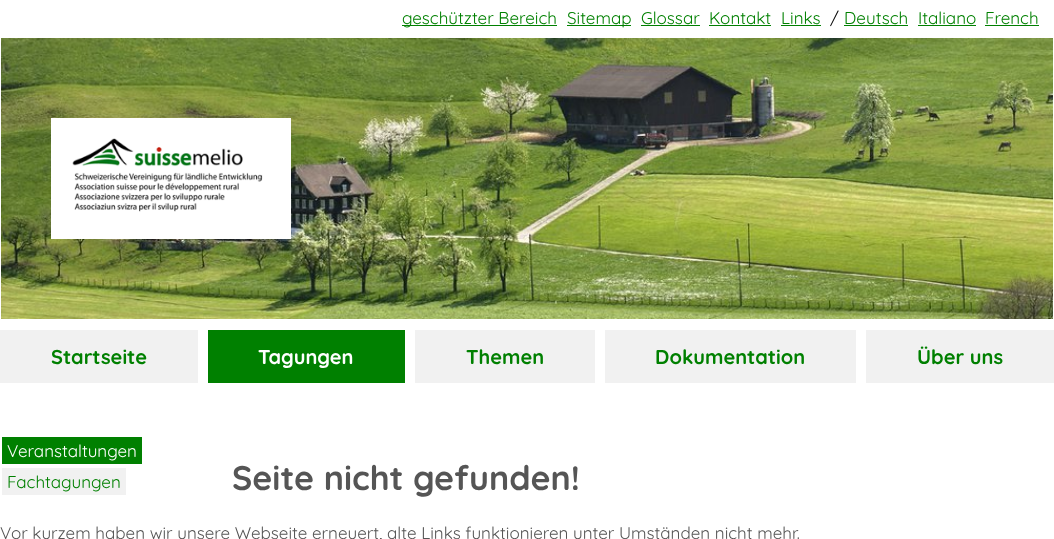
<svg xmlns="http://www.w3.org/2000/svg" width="1054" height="539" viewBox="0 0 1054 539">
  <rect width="100%" height="100%" fill="rgb(255,255,255)"/>
  <rect x="402" y="25" width="155" height="1" fill="rgb(0,128,0)"/>
  <text x="402" y="24" font-family="Quicksand" font-size="17" fill="rgb(0,128,0)">geschützter Bereich</text>
  <rect x="567" y="25" width="64" height="1" fill="rgb(0,128,0)"/>
  <g font-family="Quicksand" font-size="17" fill="rgb(0,128,0)">
    <text x="567" y="24">Sitemap</text>
    <text x="641" y="24">Glossar</text>
  </g>
  <rect x="641" y="25" width="59" height="1" fill="rgb(0,128,0)"/>
  <text x="709" y="24" font-family="Quicksand" font-size="17" fill="rgb(0,128,0)">Kontakt</text>
  <rect x="709" y="25" width="62" height="1" fill="rgb(0,128,0)"/>
  <text x="781" y="24" font-family="Quicksand" font-size="17" fill="rgb(0,128,0)">Links</text>
  <rect x="781" y="25" width="40" height="1" fill="rgb(0,128,0)"/>
  <text x="830" y="24" font-family="Quicksand" font-size="17" fill="rgb(0,0,0)">/</text>
  <text x="844" y="24" font-family="Quicksand" font-size="17" fill="rgb(0,128,0)">Deutsch</text>
  <rect x="844" y="25" width="64" height="1" fill="rgb(0,128,0)"/>
  <text x="918" y="24" font-family="Quicksand" font-size="17" fill="rgb(0,128,0)">Italiano</text>
  <rect x="918" y="25" width="58" height="1" fill="rgb(0,128,0)"/>
  <text x="985" y="24" font-family="Quicksand" font-size="17" fill="rgb(0,128,0)">French</text>
  <rect x="985" y="25" width="54" height="1" fill="rgb(0,128,0)"/>
  <image x="1" y="38" width="1052" height="281" href="pic1.png"/>
  <rect x="51" y="118" width="240" height="121" fill="rgb(255,255,255)"/>
  <image x="72" y="138" width="191" height="74" href="pic2.png"/>
  <rect x="0" y="330" width="198" height="53" fill="rgb(241,241,241)"/>
  <text x="51" y="364" font-family="Quicksand" font-size="20" font-weight="bold" fill="rgb(0,128,0)">Startseite</text>
  <rect x="208" y="330" width="197" height="53" fill="rgb(0,128,0)"/>
  <text x="258" y="364" font-family="Quicksand" font-size="20" font-weight="bold" fill="rgb(255,255,255)">Tagungen</text>
  <rect x="415" y="330" width="180" height="53" fill="rgb(241,241,241)"/>
  <text x="466" y="364" font-family="Quicksand" font-size="20" font-weight="bold" fill="rgb(0,128,0)">Themen</text>
  <rect x="605" y="330" width="251" height="53" fill="rgb(241,241,241)"/>
  <text x="655" y="364" font-family="Quicksand" font-size="20" font-weight="bold" fill="rgb(0,128,0)">Dokumentation</text>
  <rect x="866" y="330" width="188" height="53" fill="rgb(241,241,241)"/>
  <text x="917" y="364" font-family="Quicksand" font-size="20" font-weight="bold" fill="rgb(0,128,0)">Über uns</text>
  <rect x="2" y="437" width="140" height="27" fill="rgb(0,128,0)"/>
  <text x="7" y="457" font-family="Quicksand" font-size="17" fill="rgb(255,255,255)">Veranstaltungen</text>
  <rect x="2" y="468" width="124" height="27" fill="rgb(241,241,241)"/>
  <text x="7" y="488" font-family="Quicksand" font-size="17" fill="rgb(0,128,0)">Fachtagungen</text>
  <text x="232" y="490" font-family="Quicksand" font-size="34" font-weight="bold" fill="rgb(85,85,85)">Seite nicht gefunden!</text>
  <text x="0" y="539" font-family="Quicksand" font-size="17" fill="rgb(85,85,85)">Vor kurzem haben wir unsere Webseite erneuert, alte Links funktionieren unter Umständen nicht mehr.</text>
</svg>
